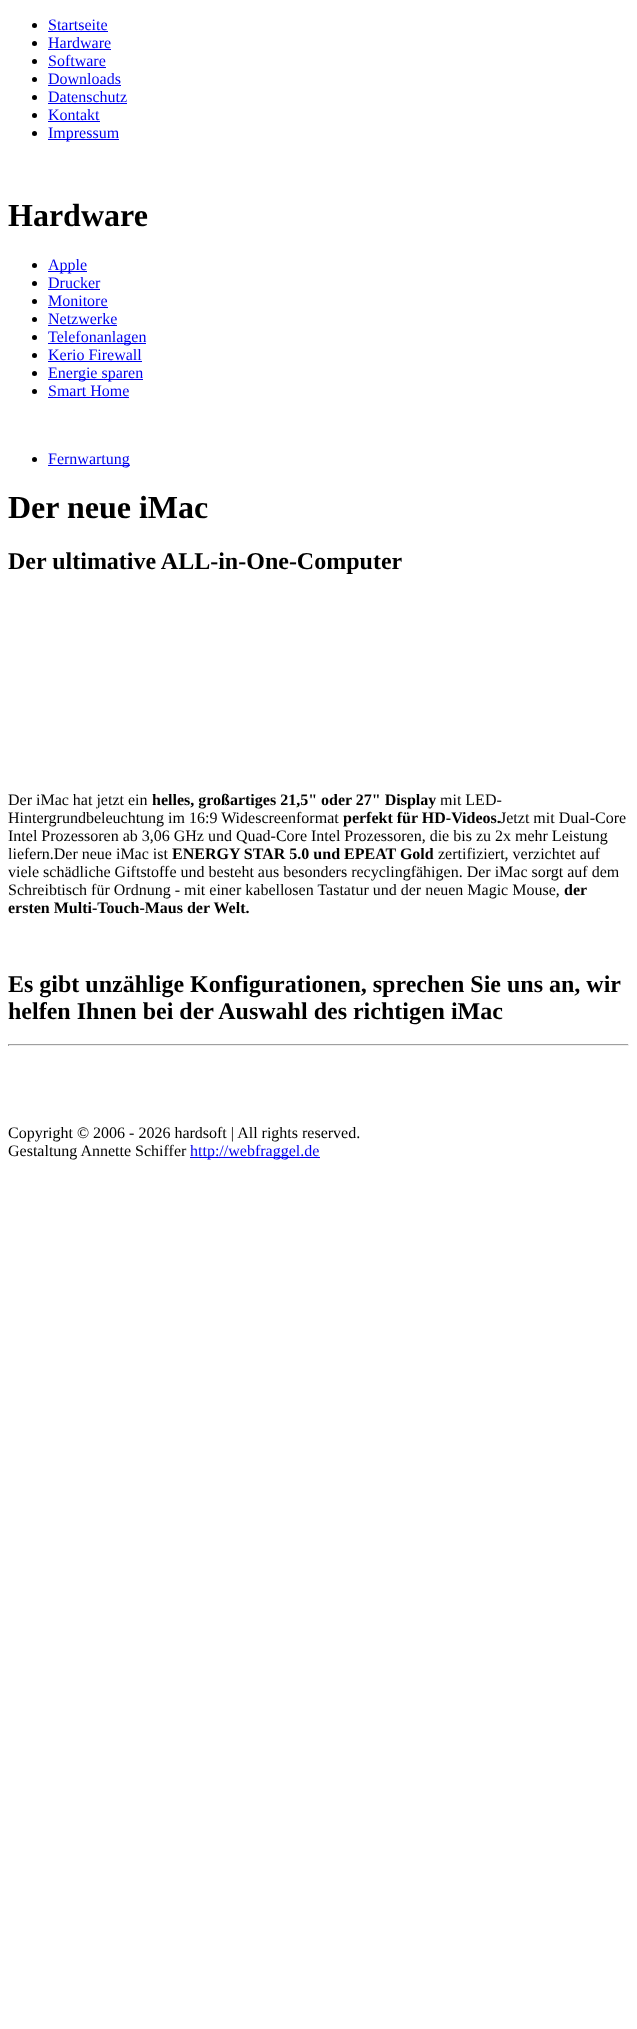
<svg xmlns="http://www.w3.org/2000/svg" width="637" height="2029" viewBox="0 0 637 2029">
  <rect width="100%" height="100%" fill="rgb(255,255,255)"/>
  <circle cx="34.5" cy="25.5" r="2.5" fill="rgb(0,0,0)"/>
  <text x="48" y="30" font-family="Liberation Serif" font-size="16" fill="rgb(0,0,238)">Startseite</text>
  <rect x="48" y="31" width="60" height="1" fill="rgb(0,0,238)"/>
  <circle cx="34.5" cy="43.5" r="2.5" fill="rgb(0,0,0)"/>
  <text x="48" y="48" font-family="Liberation Serif" font-size="16" fill="rgb(0,0,238)">Hardware</text>
  <rect x="48" y="49" width="63" height="1" fill="rgb(0,0,238)"/>
  <circle cx="34.5" cy="61.5" r="2.5" fill="rgb(0,0,0)"/>
  <text x="48" y="66" font-family="Liberation Serif" font-size="16" fill="rgb(0,0,238)">Software</text>
  <rect x="48" y="67" width="58" height="1" fill="rgb(0,0,238)"/>
  <circle cx="34.5" cy="79.5" r="2.5" fill="rgb(0,0,0)"/>
  <text x="48" y="84" font-family="Liberation Serif" font-size="16" fill="rgb(0,0,238)">Downloads</text>
  <rect x="48" y="85" width="73" height="1" fill="rgb(0,0,238)"/>
  <circle cx="34.5" cy="97.5" r="2.5" fill="rgb(0,0,0)"/>
  <text x="48" y="102" font-family="Liberation Serif" font-size="16" fill="rgb(0,0,238)">Datenschutz</text>
  <rect x="48" y="103" width="79" height="1" fill="rgb(0,0,238)"/>
  <circle cx="34.5" cy="115.5" r="2.5" fill="rgb(0,0,0)"/>
  <text x="48" y="120" font-family="Liberation Serif" font-size="16" fill="rgb(0,0,238)">Kontakt</text>
  <rect x="48" y="121" width="52" height="1" fill="rgb(0,0,238)"/>
  <circle cx="34.5" cy="133.5" r="2.5" fill="rgb(0,0,0)"/>
  <rect x="48" y="139" width="71" height="1" fill="rgb(0,0,238)"/>
  <text x="48" y="138" font-family="Liberation Serif" font-size="16" fill="rgb(0,0,238)">Impressum</text>
  <text x="8" y="226" font-family="Liberation Serif" font-size="32" font-weight="bold" fill="rgb(0,0,0)">Hardware</text>
  <circle cx="34.5" cy="265.5" r="2.5" fill="rgb(0,0,0)"/>
  <rect x="48" y="271" width="39" height="1" fill="rgb(0,0,238)"/>
  <text x="48" y="270" font-family="Liberation Serif" font-size="16" fill="rgb(0,0,238)">Apple</text>
  <circle cx="34.5" cy="283.5" r="2.5" fill="rgb(0,0,0)"/>
  <text x="48" y="288" font-family="Liberation Serif" font-size="16" fill="rgb(0,0,238)">Drucker</text>
  <rect x="48" y="289" width="52" height="1" fill="rgb(0,0,238)"/>
  <circle cx="34.5" cy="301.5" r="2.5" fill="rgb(0,0,0)"/>
  <text x="48" y="306" font-family="Liberation Serif" font-size="16" fill="rgb(0,0,238)">Monitore</text>
  <rect x="48" y="307" width="60" height="1" fill="rgb(0,0,238)"/>
  <circle cx="34.5" cy="319.5" r="2.5" fill="rgb(0,0,0)"/>
  <text x="48" y="324" font-family="Liberation Serif" font-size="16" fill="rgb(0,0,238)">Netzwerke</text>
  <rect x="48" y="325" width="69" height="1" fill="rgb(0,0,238)"/>
  <circle cx="34.5" cy="337.5" r="2.5" fill="rgb(0,0,0)"/>
  <rect x="48" y="343" width="98" height="1" fill="rgb(0,0,238)"/>
  <text x="48" y="342" font-family="Liberation Serif" font-size="16" fill="rgb(0,0,238)">Telefonanlagen</text>
  <circle cx="34.5" cy="355.5" r="2.5" fill="rgb(0,0,0)"/>
  <text x="48" y="360" font-family="Liberation Serif" font-size="16" fill="rgb(0,0,238)">Kerio Firewall</text>
  <rect x="48" y="361" width="94" height="1" fill="rgb(0,0,238)"/>
  <circle cx="34.5" cy="373.5" r="2.5" fill="rgb(0,0,0)"/>
  <rect x="48" y="379" width="95" height="1" fill="rgb(0,0,238)"/>
  <text x="48" y="378" font-family="Liberation Serif" font-size="16" fill="rgb(0,0,238)">Energie sparen</text>
  <circle cx="34.5" cy="391.5" r="2.5" fill="rgb(0,0,0)"/>
  <text x="48" y="396" font-family="Liberation Serif" font-size="16" fill="rgb(0,0,238)">Smart Home</text>
  <rect x="48" y="397" width="81" height="1" fill="rgb(0,0,238)"/>
  <circle cx="34.5" cy="459.5" r="2.5" fill="rgb(0,0,0)"/>
  <rect x="48" y="465" width="82" height="1" fill="rgb(0,0,238)"/>
  <text x="48" y="464" font-family="Liberation Serif" font-size="16" fill="rgb(0,0,238)">Fernwartung</text>
  <text x="8" y="518" font-family="Liberation Serif" font-size="32" font-weight="bold" fill="rgb(0,0,0)">Der neue iMac</text>
  <text x="8" y="569" font-family="Liberation Serif" font-size="24" font-weight="bold" fill="rgb(0,0,0)">Der ultimative ALL-in-One-Computer</text>
  <text x="8" y="805" font-family="Liberation Serif" font-size="16" fill="rgb(0,0,0)">Der iMac hat jetzt ein</text>
  <text x="152" y="805" font-family="Liberation Serif" font-size="16" font-weight="bold" fill="rgb(0,0,0)">helles, großartiges 21,5" oder 27" Display</text>
  <g font-family="Liberation Serif" font-size="16" fill="rgb(0,0,0)">
    <text x="440" y="805">mit LED-</text>
    <text x="8" y="823">Hintergrundbeleuchtung im 16:9 Widescreenformat</text>
  </g>
  <text x="343" y="823" font-family="Liberation Serif" font-size="16" font-weight="bold" fill="rgb(0,0,0)">perfekt für HD-Videos.</text>
  <g font-family="Liberation Serif" font-size="16" fill="rgb(0,0,0)">
    <text x="500" y="823">Jetzt mit Dual-Core</text>
    <text>
      <tspan x="8" y="841">Intel Prozessoren ab 3,06 GHz und Quad-Core Intel Prozessoren, die bis zu 2x mehr Leistung</tspan>
      <tspan x="8" y="859">liefern.Der neue iMac ist</tspan>
    </text>
  </g>
  <text x="172" y="859" font-family="Liberation Serif" font-size="16" font-weight="bold" fill="rgb(0,0,0)">ENERGY STAR 5.0 und EPEAT Gold</text>
  <g font-family="Liberation Serif" font-size="16" fill="rgb(0,0,0)">
    <text x="438" y="859">zertifiziert, verzichtet auf</text>
    <text>
      <tspan x="8" y="877">viele schädliche Giftstoffe und besteht aus besonders recyclingfähigen. Der iMac sorgt auf dem</tspan>
      <tspan x="8" y="895">Schreibtisch für Ordnung - mit einer kabellosen Tastatur und der neuen Magic Mouse,</tspan>
    </text>
  </g>
  <g font-family="Liberation Serif" font-size="16" font-weight="bold" fill="rgb(0,0,0)">
    <text x="564" y="895">der</text>
    <text x="8" y="913">ersten Multi-Touch-Maus der Welt.</text>
  </g>
  <g font-family="Liberation Serif" font-size="24" font-weight="bold" fill="rgb(0,0,0)">
    <text>
      <tspan x="8" y="992">Es gibt unzählige Konfigurationen, sprechen Sie uns an, wir</tspan>
      <tspan x="8" y="1019">helfen Ihnen bei der Auswahl des richtigen iMac</tspan>
    </text>
  </g>
  <rect x="8" y="1044" width="621" height="1" fill="rgb(159,159,159)"/>
  <rect x="628" y="1044" width="1" height="2" fill="rgb(238,238,238)"/>
  <rect x="8" y="1045" width="621" height="1" fill="rgb(238,238,238)"/>
  <rect x="8" y="1044" width="1" height="2" fill="rgb(159,159,159)"/>
  <g font-family="Liberation Serif" font-size="16" fill="rgb(0,0,0)">
    <text>
      <tspan x="8" y="1138">Copyright © 2006 - 2026 hardsoft | All rights reserved.</tspan>
      <tspan x="8" y="1156">Gestaltung Annette Schiffer</tspan>
    </text>
  </g>
  <rect x="190" y="1157" width="130" height="1" fill="rgb(0,0,238)"/>
  <text x="190" y="1156" font-family="Liberation Serif" font-size="16" fill="rgb(0,0,238)">http://webfraggel.de</text>
</svg>
